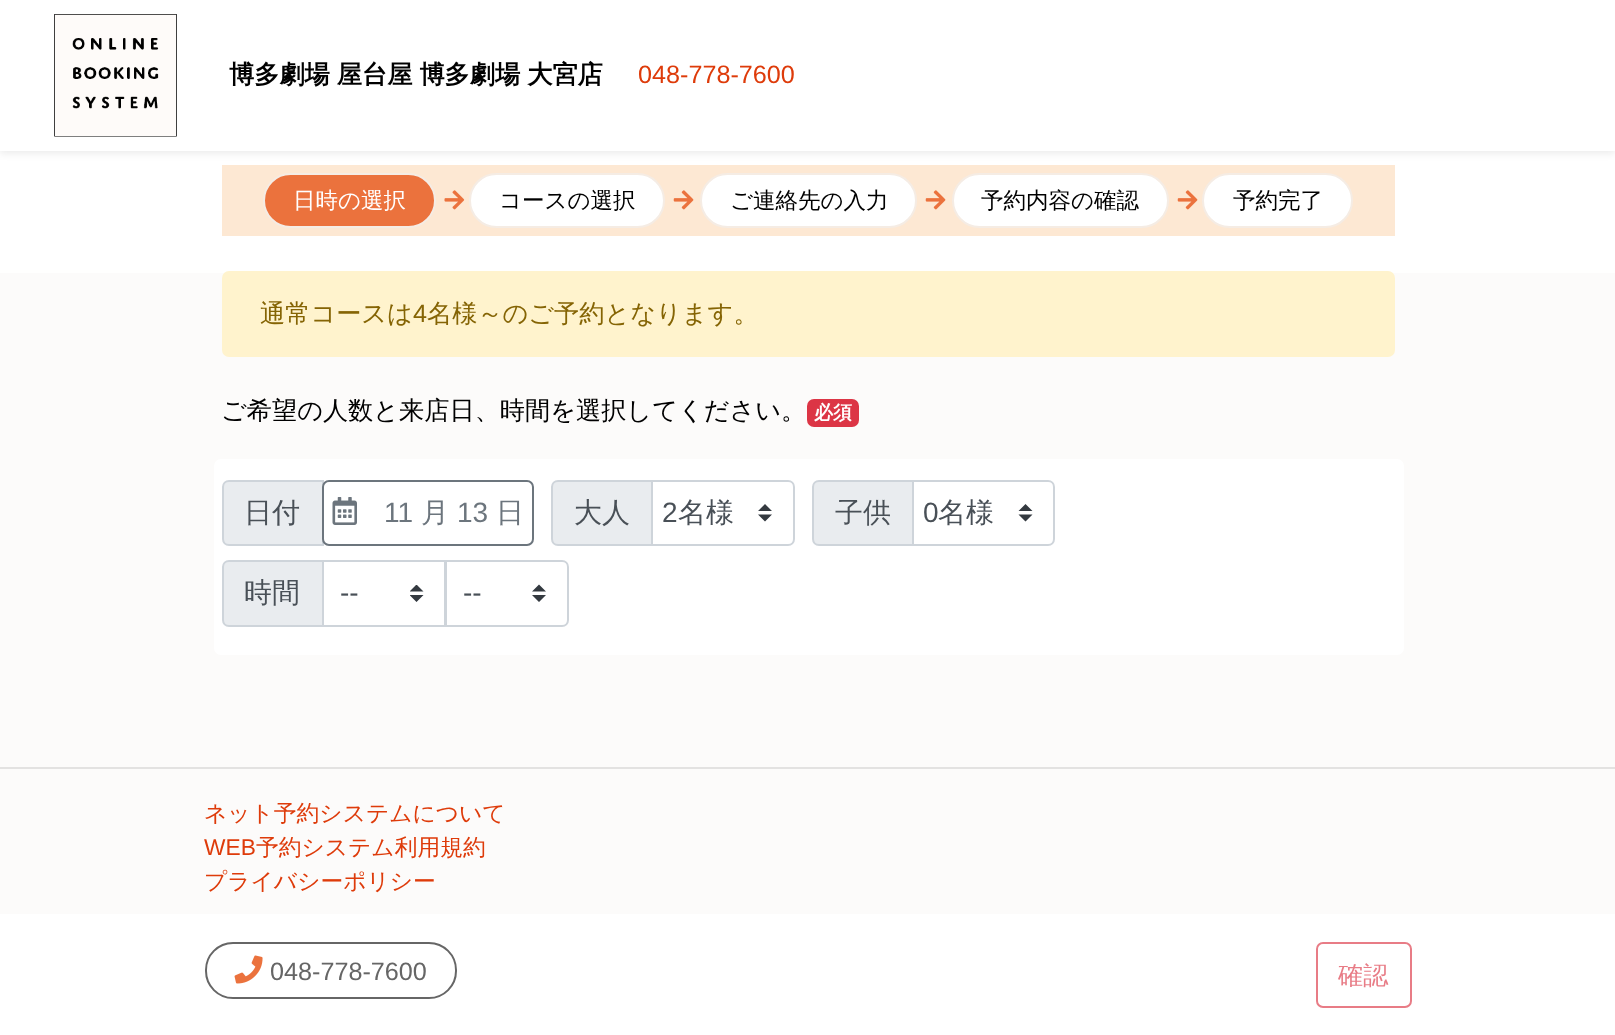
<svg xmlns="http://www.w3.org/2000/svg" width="1615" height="1035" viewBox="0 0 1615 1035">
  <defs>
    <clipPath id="clip1"><path d="M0 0H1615V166H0ZM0 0H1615V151H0Z" clip-rule="evenodd"/></clipPath>
    <clipPath id="clip2"><rect x="410" y="585" width="14" height="17"/></clipPath>
  </defs>
  <rect width="100%" height="100%" fill="rgb(252,251,250)"/>
  <image x="0" y="0" width="1615" height="273" href="pic1.png"/>
  <rect x="222" y="165" width="1173" height="71" fill="rgb(253,232,211)"/>
  <g clip-path="url(#clip1)">
    <rect x="0" y="4" width="1615" height="150" fill="rgba(0,0,0,0.07)" filter="blur(3.5px)"/>
  </g>
  <image x="54" y="14" width="123" height="123" href="pic2.png"/>
  <text x="229" y="83" word-spacing="-0.5" font-family="WenQuanYi Zen Hei" font-size="25.2" font-weight="bold" fill="rgb(0,0,0)">博多劇場 屋台屋 博多劇場 大宮店</text>
  <text x="638" y="83" font-family="Liberation Sans" font-size="25.2" fill="rgb(222,59,10)">048-778-7600</text>
  <rect x="264" y="174" width="171" height="53" rx="26.5" fill="rgb(235,114,61)" stroke="rgb(245,236,228)" stroke-width="2"/>
  <text x="293" y="208" font-family="WenQuanYi Zen Hei" font-size="22.5" font-weight="500" fill="rgb(255,255,255)">日時の選択</text>
  <image x="444" y="190" width="21" height="20" href="pic3.png"/>
  <rect x="470" y="174" width="194" height="53" rx="26.5" fill="rgb(255,255,255)" stroke="rgb(245,236,228)" stroke-width="2"/>
  <text x="499" y="208" font-family="WenQuanYi Zen Hei" font-size="22.5" font-weight="500" fill="rgb(0,0,0)">コースの選択</text>
  <image x="673" y="190" width="21" height="20" href="pic4.png"/>
  <rect x="701" y="174" width="215" height="53" rx="26.5" fill="rgb(255,255,255)" stroke="rgb(245,236,228)" stroke-width="2"/>
  <text x="730" y="208" font-family="WenQuanYi Zen Hei" font-size="22.5" font-weight="500" fill="rgb(0,0,0)">ご連絡先の入力</text>
  <image x="925" y="190" width="21" height="20" href="pic4.png"/>
  <rect x="953" y="174" width="215" height="53" rx="26.5" fill="rgb(255,255,255)" stroke="rgb(245,236,228)" stroke-width="2"/>
  <text x="981" y="208" font-family="WenQuanYi Zen Hei" font-size="22.5" font-weight="500" fill="rgb(0,0,0)">予約内容の確認</text>
  <image x="1177" y="190" width="21" height="20" href="pic4.png"/>
  <rect x="1203" y="174" width="149" height="53" rx="26.5" fill="rgb(255,255,255)" stroke="rgb(245,236,228)" stroke-width="2"/>
  <text x="1233" y="208" font-family="WenQuanYi Zen Hei" font-size="22.5" font-weight="500" fill="rgb(0,0,0)">予約完了</text>
  <rect x="222" y="271" width="1173" height="86" rx="7" fill="rgb(255,243,205)"/>
  <text x="260" y="322" font-family="WenQuanYi Zen Hei" font-size="25.2" font-weight="500" fill="rgb(133,100,4)">通常コースは</text>
  <text x="413" y="322" font-family="Liberation Sans" font-size="25.2" fill="rgb(133,100,4)">4</text>
  <text x="427" y="322" font-family="WenQuanYi Zen Hei" font-size="25.2" font-weight="500" fill="rgb(133,100,4)">名様～のご予約となります。</text>
  <text x="221" y="419" font-family="WenQuanYi Zen Hei" font-size="25.2" font-weight="500" fill="rgb(0,0,0)">ご希望の人数と来店日、時間を選択してください。</text>
  <rect x="807" y="399" width="52" height="28" rx="7" fill="rgb(220,53,69)"/>
  <text x="814" y="419" font-family="WenQuanYi Zen Hei" font-size="19" font-weight="bold" fill="rgb(255,255,255)">必須</text>
  <rect x="214" y="459" width="1190" height="196" rx="7" fill="rgb(255,255,255)"/>
  <path d="M229 481H323V545H229C225.5 545 223 542.5 223 539V487C223 483.5 225.5 481 229 481Z" fill="rgb(233,236,239)" stroke="rgb(206,212,218)" stroke-width="2"/>
  <text x="244" y="522" font-family="WenQuanYi Zen Hei" font-size="28" font-weight="500" fill="rgb(73,80,87)">日付</text>
  <rect x="323" y="481" width="210" height="64" rx="6" fill="none" stroke="rgb(108,117,125)" stroke-width="2"/>
  <image x="332" y="497" width="25" height="28" href="pic5.png"/>
  <text x="384" y="522" font-family="Liberation Sans" font-size="28" fill="rgb(108,117,125)">11</text>
  <text x="421" y="522" font-family="WenQuanYi Zen Hei" font-size="28" font-weight="500" fill="rgb(108,117,125)">月</text>
  <text x="457" y="522" font-family="Liberation Sans" font-size="28" fill="rgb(108,117,125)">13</text>
  <text x="496" y="522" font-family="WenQuanYi Zen Hei" font-size="28" font-weight="500" fill="rgb(108,117,125)">日</text>
  <path d="M558 481H652V545H558C554.5 545 552 542.5 552 539V487C552 483.5 554.5 481 558 481Z" fill="rgb(233,236,239)" stroke="rgb(206,212,218)" stroke-width="2"/>
  <text x="574" y="522" font-family="WenQuanYi Zen Hei" font-size="28" font-weight="500" fill="rgb(73,80,87)">大人</text>
  <path d="M651 480H788C792 480 795 483 795 487V539C795 543 792 546 788 546H651Z" fill="rgb(255,255,255)"/>
  <path d="M765 504L758 511H772ZM765 521.5L758 514.5H772Z" fill="rgb(52,58,64)"/>
  <path d="M652 481H788C791.5 481 794 483.5 794 487V539C794 542.5 791.5 545 788 545H652Z" fill="none" stroke="rgb(206,212,218)" stroke-width="2"/>
  <text x="662" y="522" font-family="Liberation Sans" font-size="28" fill="rgb(73,80,87)">2</text>
  <text x="678" y="522" font-family="WenQuanYi Zen Hei" font-size="28" font-weight="500" fill="rgb(73,80,87)">名様</text>
  <path d="M819 481H913V545H819C815.5 545 813 542.5 813 539V487C813 483.5 815.5 481 819 481Z" fill="rgb(233,236,239)" stroke="rgb(206,212,218)" stroke-width="2"/>
  <text x="835" y="522" font-family="WenQuanYi Zen Hei" font-size="28" font-weight="500" fill="rgb(73,80,87)">子供</text>
  <path d="M912 480H1048C1052 480 1055 483 1055 487V539C1055 543 1052 546 1048 546H912Z" fill="rgb(255,255,255)"/>
  <path d="M1025.5 504L1018.5 511H1032.5ZM1025.5 521.5L1018.5 514.5H1032.5Z" fill="rgb(52,58,64)"/>
  <path d="M913 481H1048C1051.5 481 1054 483.5 1054 487V539C1054 542.5 1051.5 545 1048 545H913Z" fill="none" stroke="rgb(206,212,218)" stroke-width="2"/>
  <text x="923" y="522" font-family="Liberation Sans" font-size="28" fill="rgb(73,80,87)">0</text>
  <text x="938" y="522" font-family="WenQuanYi Zen Hei" font-size="28" font-weight="500" fill="rgb(73,80,87)">名様</text>
  <path d="M229 561H323V626H229C225.5 626 223 623.5 223 620V567C223 563.5 225.5 561 229 561Z" fill="rgb(233,236,239)" stroke="rgb(206,212,218)" stroke-width="2"/>
  <text x="244" y="602" font-family="WenQuanYi Zen Hei" font-size="28" font-weight="500" fill="rgb(73,80,87)">時間</text>
  <g clip-path="url(#clip2)">
    <path d="M416.5 584.5L409.5 591.5H423.5ZM416.5 602L409.5 595H423.5Z" fill="rgb(52,58,64)"/>
  </g>
  <rect x="323" y="561" width="122" height="65" fill="none" stroke="rgb(206,212,218)" stroke-width="2"/>
  <text x="340" y="602" font-family="Liberation Sans" font-size="28" fill="rgb(73,80,87)">--</text>
  <path d="M445 560H562C566 560 569 563 569 567V620C569 624 566 627 562 627H445Z" fill="rgb(255,255,255)"/>
  <path d="M539 584.5L532 591.5H546ZM539 602L532 595H546Z" fill="rgb(52,58,64)"/>
  <path d="M446 561H562C565.5 561 568 563.5 568 567V620C568 623.5 565.5 626 562 626H446Z" fill="none" stroke="rgb(206,212,218)" stroke-width="2"/>
  <text x="463" y="602" font-family="Liberation Sans" font-size="28" fill="rgb(73,80,87)">--</text>
  <rect x="0" y="767" width="1615" height="2" fill="rgb(227,226,225)"/>
  <text x="204" y="821" font-family="WenQuanYi Zen Hei" font-size="22.75" font-weight="500" fill="rgb(222,59,10)">ネット予約システムについて</text>
  <text x="204" y="855" font-family="Liberation Sans" font-size="22.75" fill="rgb(222,59,10)">WEB</text>
  <g font-family="WenQuanYi Zen Hei" font-size="22.75" font-weight="500" fill="rgb(222,59,10)">
    <text x="256" y="855">予約システム利用規約</text>
    <text x="204" y="889">プライバシーポリシー</text>
  </g>
  <rect x="0" y="914" width="1615" height="121" fill="rgb(255,255,255)"/>
  <rect x="206" y="943" width="250" height="55" rx="27" fill="none" stroke="rgb(102,102,102)" stroke-width="2"/>
  <image x="234" y="955" width="29" height="29" href="pic6.png"/>
  <text x="270" y="980" font-family="Liberation Sans" font-size="25.2" fill="rgb(102,102,102)">048-778-7600</text>
  <rect x="1317" y="943" width="94" height="64" rx="6" fill="none" stroke="rgb(232,124,134)" stroke-width="2"/>
  <text x="1338" y="984" font-family="WenQuanYi Zen Hei" font-size="25.2" font-weight="500" fill="rgb(232,124,134)">確認</text>
</svg>
